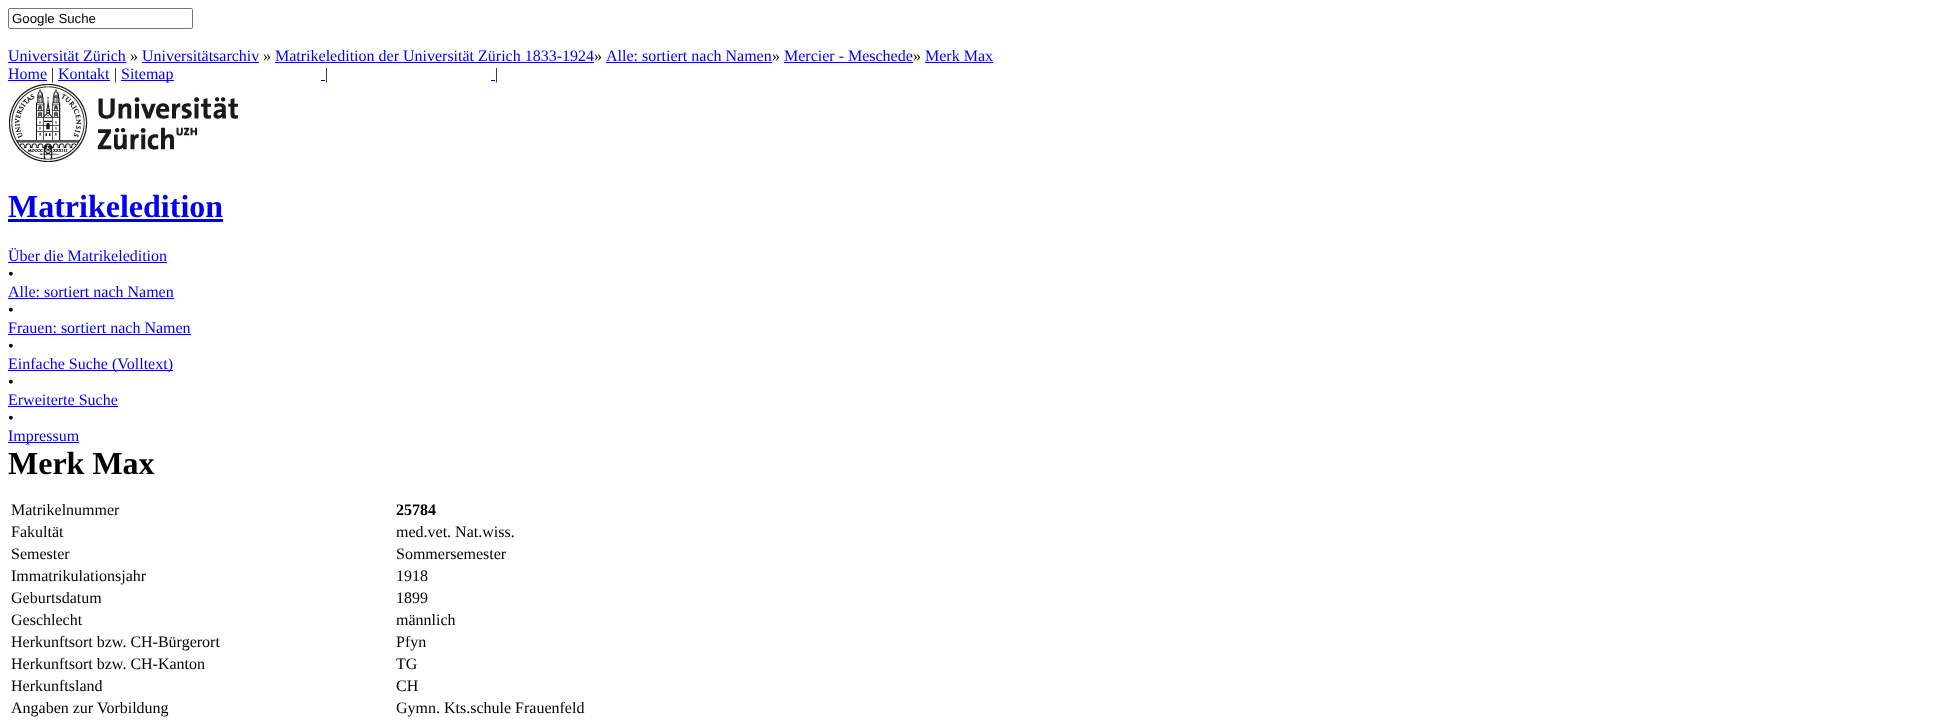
<svg xmlns="http://www.w3.org/2000/svg" width="1935" height="725" viewBox="0 0 1935 725">
  <rect width="100%" height="100%" fill="rgb(255,255,255)"/>
  <rect x="8.5" y="8.5" width="184" height="20" rx="1.5" fill="none" stroke="rgb(118,118,118)"/>
  <text x="12" y="23" font-family="Liberation Sans" font-size="13.25" fill="rgb(0,0,0)">Google Suche</text>
  <text x="8" y="61" font-family="Liberation Serif" font-size="16" fill="rgb(0,0,238)">Universität Zürich</text>
  <rect x="8" y="62" width="118" height="1" fill="rgb(0,0,238)"/>
  <text x="130" y="61" font-family="Liberation Serif" font-size="16" fill="rgb(0,0,0)">»</text>
  <text x="142" y="61" font-family="Liberation Serif" font-size="16" fill="rgb(0,0,238)">Universitätsarchiv</text>
  <rect x="142" y="62" width="117" height="1" fill="rgb(0,0,238)"/>
  <text x="263" y="61" font-family="Liberation Serif" font-size="16" fill="rgb(0,0,0)">»</text>
  <text x="275" y="61" font-family="Liberation Serif" font-size="16" fill="rgb(0,0,238)">Matrikeledition der Universität Zürich 1833-1924</text>
  <rect x="275" y="62" width="319" height="1" fill="rgb(0,0,238)"/>
  <text x="594" y="61" font-family="Liberation Serif" font-size="16" fill="rgb(0,0,0)">»</text>
  <text x="606" y="61" font-family="Liberation Serif" font-size="16" fill="rgb(0,0,238)">Alle: sortiert nach Namen</text>
  <rect x="606" y="62" width="166" height="1" fill="rgb(0,0,238)"/>
  <text x="772" y="61" font-family="Liberation Serif" font-size="16" fill="rgb(0,0,0)">»</text>
  <text x="784" y="61" font-family="Liberation Serif" font-size="16" fill="rgb(0,0,238)">Mercier - Meschede</text>
  <rect x="784" y="62" width="129" height="1" fill="rgb(0,0,238)"/>
  <text x="913" y="61" font-family="Liberation Serif" font-size="16" fill="rgb(0,0,0)">»</text>
  <text x="925" y="61" font-family="Liberation Serif" font-size="16" fill="rgb(0,0,238)">Merk Max</text>
  <rect x="925" y="62" width="68" height="1" fill="rgb(0,0,238)"/>
  <text x="8" y="79" font-family="Liberation Serif" font-size="16" fill="rgb(0,0,238)">Home</text>
  <rect x="8" y="80" width="39" height="1" fill="rgb(0,0,238)"/>
  <text x="51" y="79" font-family="Liberation Serif" font-size="16" fill="rgb(0,0,0)">|</text>
  <text x="58" y="79" font-family="Liberation Serif" font-size="16" fill="rgb(0,0,238)">Kontakt</text>
  <rect x="58" y="80" width="52" height="1" fill="rgb(0,0,238)"/>
  <text x="114" y="79" font-family="Liberation Serif" font-size="16" fill="rgb(0,0,0)">|</text>
  <rect x="121" y="80" width="53" height="1" fill="rgb(0,0,238)"/>
  <text x="121" y="79" font-family="Liberation Serif" font-size="16" fill="rgb(0,0,238)">Sitemap</text>
  <text x="325" y="79" font-family="Liberation Serif" font-size="16" fill="rgb(0,0,0)">|</text>
  <rect x="321" y="80" width="4" height="1" fill="rgb(0,0,238)"/>
  <text x="495" y="79" font-family="Liberation Serif" font-size="16" fill="rgb(0,0,0)">|</text>
  <rect x="491" y="80" width="4" height="1" fill="rgb(0,0,238)"/>
  <image x="9" y="84" width="229" height="78" href="pic1.png"/>
  <text x="8" y="217" font-family="Liberation Serif" font-size="32" font-weight="bold" fill="rgb(0,0,238)">Matrikeledition</text>
  <rect x="8" y="219" width="215" height="3" fill="rgb(0,0,238)"/>
  <text x="8" y="261" font-family="Liberation Serif" font-size="16" fill="rgb(0,0,238)">Über die Matrikeledition</text>
  <rect x="8" y="262" width="159" height="1" fill="rgb(0,0,238)"/>
  <text x="8" y="279" font-family="Liberation Serif" font-size="16" fill="rgb(0,0,0)">•</text>
  <text x="8" y="297" font-family="Liberation Serif" font-size="16" fill="rgb(0,0,238)">Alle: sortiert nach Namen</text>
  <rect x="8" y="298" width="166" height="1" fill="rgb(0,0,238)"/>
  <text x="8" y="315" font-family="Liberation Serif" font-size="16" fill="rgb(0,0,0)">•</text>
  <text x="8" y="333" font-family="Liberation Serif" font-size="16" fill="rgb(0,0,238)">Frauen: sortiert nach Namen</text>
  <rect x="8" y="334" width="183" height="1" fill="rgb(0,0,238)"/>
  <text x="8" y="351" font-family="Liberation Serif" font-size="16" fill="rgb(0,0,0)">•</text>
  <rect x="8" y="370" width="165" height="1" fill="rgb(0,0,238)"/>
  <text x="8" y="369" font-family="Liberation Serif" font-size="16" fill="rgb(0,0,238)">Einfache Suche (Volltext)</text>
  <text x="8" y="387" font-family="Liberation Serif" font-size="16" fill="rgb(0,0,0)">•</text>
  <text x="8" y="405" font-family="Liberation Serif" font-size="16" fill="rgb(0,0,238)">Erweiterte Suche</text>
  <rect x="8" y="406" width="110" height="1" fill="rgb(0,0,238)"/>
  <text x="8" y="423" font-family="Liberation Serif" font-size="16" fill="rgb(0,0,0)">•</text>
  <rect x="8" y="442" width="71" height="1" fill="rgb(0,0,238)"/>
  <text x="8" y="441" font-family="Liberation Serif" font-size="16" fill="rgb(0,0,238)">Impressum</text>
  <text x="8" y="474" font-family="Liberation Serif" font-size="32" font-weight="bold" fill="rgb(0,0,0)">Merk Max</text>
  <text x="11" y="515" font-family="Liberation Serif" font-size="16" fill="rgb(0,0,0)">Matrikelnummer</text>
  <text x="396" y="515" font-family="Liberation Serif" font-size="16" font-weight="bold" fill="rgb(0,0,0)">25784</text>
  <g font-family="Liberation Serif" font-size="16" fill="rgb(0,0,0)">
    <text x="11" y="537">Fakultät</text>
    <text x="396" y="537">med.vet. Nat.wiss.</text>
    <text x="11" y="559">Semester</text>
    <text x="396" y="559">Sommersemester</text>
    <text x="11" y="581">Immatrikulationsjahr</text>
    <text x="396" y="581">1918</text>
    <text x="11" y="603">Geburtsdatum</text>
    <text x="396" y="603">1899</text>
    <text x="11" y="625">Geschlecht</text>
    <text x="396" y="625">männlich</text>
    <text x="11" y="647">Herkunftsort bzw. CH-Bürgerort</text>
    <text x="396" y="647">Pfyn</text>
    <text x="11" y="669">Herkunftsort bzw. CH-Kanton</text>
    <text x="396" y="669">TG</text>
    <text x="11" y="691">Herkunftsland</text>
    <text x="396" y="691">CH</text>
    <text x="11" y="713">Angaben zur Vorbildung</text>
    <text x="396" y="713">Gymn. Kts.schule Frauenfeld</text>
  </g>
</svg>
